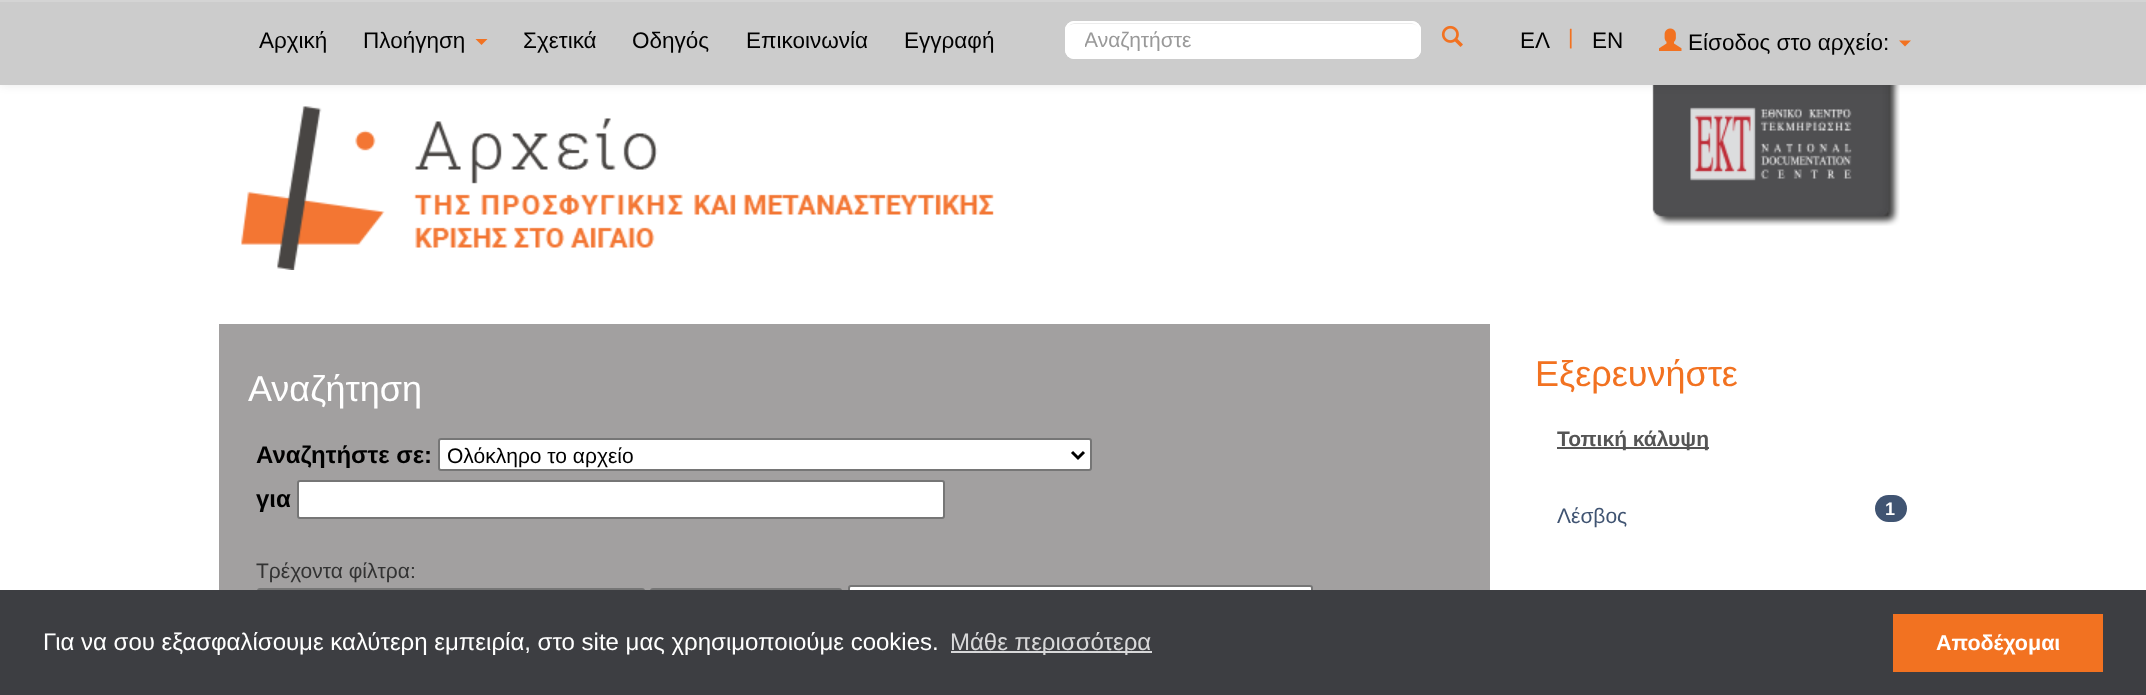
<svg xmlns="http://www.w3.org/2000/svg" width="2146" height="695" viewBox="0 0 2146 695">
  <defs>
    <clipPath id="clip1"><rect x="1085" y="27" width="316" height="24"/></clipPath>
  </defs>
  <rect width="100%" height="100%" fill="rgb(255,255,255)"/>
  <image x="1652" y="85" width="248" height="141" href="pic4.png"/>
  <rect x="0" y="2" width="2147" height="84" fill="rgba(0,0,0,0.07)" filter="blur(4px)"/>
  <rect x="0" y="2" width="2146" height="83" fill="rgb(204,204,204)"/>
  <rect x="0" y="0" width="2146" height="2" fill="rgb(212,212,212)"/>
  <g font-family="Liberation Sans" font-size="22.5" fill="rgb(0,0,0)">
    <text x="259" y="48">Αρχική</text>
    <text x="363" y="48">Πλοήγηση</text>
  </g>
  <path d="M475.5 39H487.5L481.5 45Z" fill="rgb(242,114,33)"/>
  <g font-family="Liberation Sans" font-size="22.5" fill="rgb(0,0,0)">
    <text x="523" y="48">Σχετικά</text>
    <text x="632" y="48">Οδηγός</text>
    <text x="746" y="48">Επικοινωνία</text>
    <text x="904" y="48">Εγγραφή</text>
  </g>
  <rect x="1065" y="21" width="356" height="38" rx="9" fill="rgb(255,255,255)"/>
  <path d="M1074 24H1412C1416 24 1419 27 1419 32V31C1419 27 1415 23 1411 23H1075C1073 23 1070 24 1069 26C1070 25 1072 24 1074 24Z" fill="rgb(236,236,236)"/>
  <rect x="1066" y="22" width="354" height="36" rx="8" fill="none" stroke="rgb(255,255,255)" stroke-width="2"/>
  <g clip-path="url(#clip1)">
    <text x="1084" y="47" font-family="Liberation Sans" font-size="21" fill="rgb(153,153,153)">Αναζητήστε</text>
  </g>
  <image x="1441" y="25" width="22" height="22" href="pic1.png"/>
  <text x="1520" y="48" font-family="Liberation Sans" font-size="22.5" fill="rgb(0,0,0)">ΕΛ</text>
  <text x="1568" y="44" font-family="Liberation Sans" font-size="21" fill="rgb(242,114,33)">|</text>
  <text x="1592" y="48" font-family="Liberation Sans" font-size="22.5" fill="rgb(0,0,0)">EN</text>
  <image x="1659" y="28" width="23" height="23" href="pic2.png"/>
  <text x="1688" y="50" font-family="Liberation Sans" font-size="22.5" fill="rgb(0,0,0)">Είσοδος στο αρχείο:</text>
  <path d="M1899 40.5H1911L1905 46.5Z" fill="rgb(242,114,33)"/>
  <image x="241" y="106" width="753" height="164" href="pic3.png"/>
  <rect x="219" y="324" width="1271" height="266" fill="rgb(162,160,160)"/>
  <text x="248" y="401" font-family="Liberation Sans" font-size="36" fill="rgb(255,255,255)">Αναζήτηση</text>
  <text x="256" y="463" font-family="Liberation Sans" font-size="24" font-weight="bold" fill="rgb(0,0,0)">Αναζητήστε σε:</text>
  <rect x="439" y="439" width="652" height="31" rx="2" fill="rgb(255,255,255)" stroke="rgb(118,118,118)" stroke-width="2"/>
  <path d="M1072 452L1078 458L1084 452" fill="none" stroke="rgb(0,0,0)" stroke-width="3"/>
  <text x="447" y="463" font-family="Liberation Sans" font-size="21" fill="rgb(0,0,0)">Ολόκληρο το αρχείο</text>
  <text x="256" y="507" font-family="Liberation Sans" font-size="24" font-weight="bold" fill="rgb(0,0,0)">για</text>
  <rect x="298" y="481" width="646" height="37" rx="2" fill="rgb(255,255,255)" stroke="rgb(118,118,118)" stroke-width="2"/>
  <text x="256" y="578" font-family="Liberation Sans" font-size="21" fill="rgb(51,51,51)">Τρέχοντα φίλτρα:</text>
  <rect x="258" y="589" width="386" height="31" rx="2" fill="none" stroke="rgb(118,118,118)" stroke-width="2"/>
  <rect x="651" y="589" width="190" height="31" rx="2" fill="none" stroke="rgb(118,118,118)" stroke-width="2"/>
  <rect x="849" y="586" width="463" height="37" rx="2" fill="rgb(255,255,255)" stroke="rgb(118,118,118)" stroke-width="2"/>
  <text x="1535" y="386" font-family="Liberation Sans" font-size="36" fill="rgb(242,114,33)">Εξερευνήστε</text>
  <rect x="1557" y="447" width="152" height="2" fill="rgb(85,85,85)"/>
  <text x="1557" y="446" font-family="Liberation Sans" font-size="21" font-weight="bold" fill="rgb(85,85,85)">Τοπική κάλυψη</text>
  <text x="1557" y="523" font-family="Liberation Sans" font-size="21" fill="rgb(64,84,114)">Λέσβος</text>
  <rect x="1875" y="495" width="32" height="27" rx="13.5" fill="rgb(64,84,114)"/>
  <text x="1885" y="515" font-family="Liberation Sans" font-size="18" font-weight="bold" fill="rgb(255,255,255)">1</text>
  <rect x="0" y="590" width="2146" height="105" fill="rgb(61,62,66)"/>
  <text x="43" y="650" font-family="Liberation Sans" font-size="24" fill="rgb(255,255,255)">Για να σου εξασφαλίσουμε καλύτερη εμπειρία, στο site μας χρησιμοποιούμε cookies.</text>
  <rect x="951" y="651" width="201" height="2" fill="rgb(216,216,217)"/>
  <text x="950" y="650" font-family="Liberation Sans" font-size="24" fill="rgb(216,216,217)">Μάθε περισσότερα</text>
  <rect x="1893" y="614" width="210" height="58" fill="rgb(242,114,33)"/>
  <text x="1936" y="650" font-family="Liberation Sans" font-size="21.5" font-weight="bold" fill="rgb(255,255,255)">Αποδέχομαι</text>
</svg>
